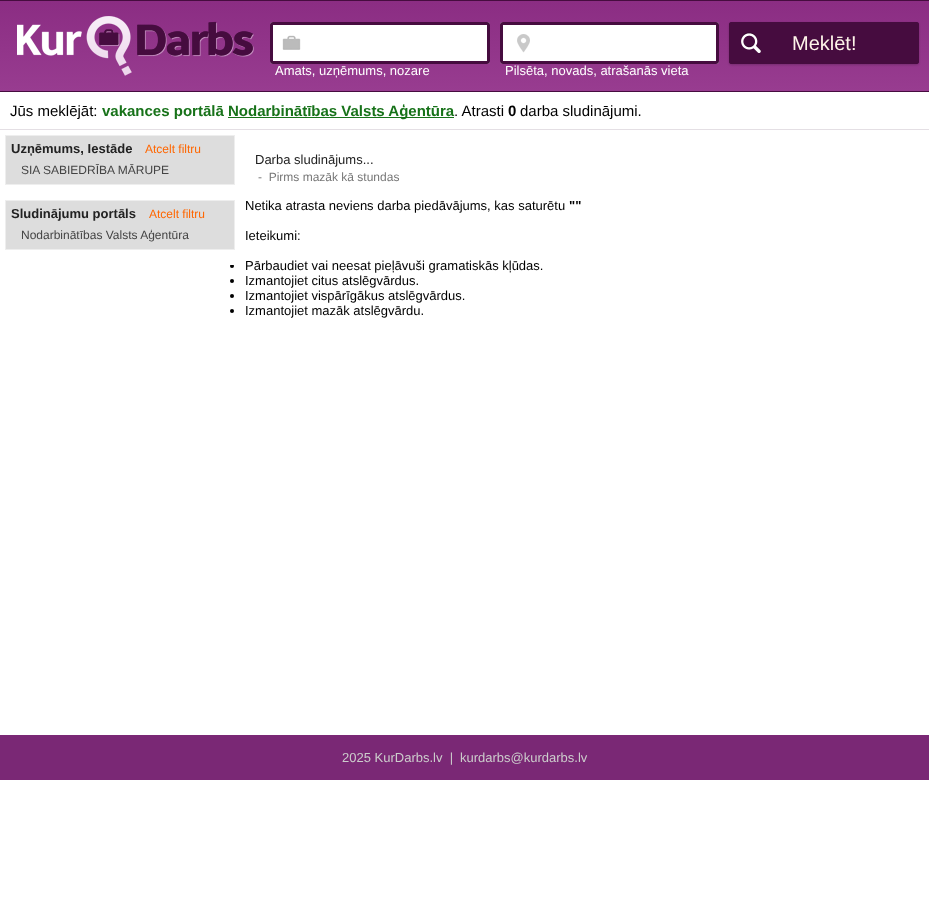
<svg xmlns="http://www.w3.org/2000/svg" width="929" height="901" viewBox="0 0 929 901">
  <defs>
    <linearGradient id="g1" gradientUnits="userSpaceOnUse" x1="465" y1="1" x2="465" y2="91"><stop offset="0" stop-color="rgb(139,45,131)"/><stop offset="1" stop-color="rgb(152,60,144)"/></linearGradient>
  </defs>
  <rect width="100%" height="100%" fill="rgb(255,255,255)"/>
  <rect x="0" y="1" width="929" height="90" fill="url(#g1)"/>
  <rect x="0" y="0" width="929" height="1" fill="rgb(70,12,63)"/>
  <rect x="0" y="91" width="929" height="1" fill="rgb(70,12,63)"/>
  <image x="17" y="16" width="237" height="60" href="pic1.png"/>
  <rect x="729" y="23" width="190" height="42" rx="3" fill="rgba(0,0,0,0.2)" filter="blur(1px)"/>
  <rect x="729" y="22" width="190" height="42" rx="3" fill="rgb(70,12,63)"/>
  <image x="741" y="32" width="20" height="21" href="pic2.png"/>
  <rect x="731" y="24" width="186" height="38" rx="1" fill="none" stroke="rgb(70,12,63)" stroke-width="4"/>
  <text x="792" y="50" font-family="Liberation Sans" font-size="20" fill="rgb(254,244,233)">Meklēt!</text>
  <rect x="270" y="22" width="220" height="42" rx="3" fill="rgb(255,255,255)"/>
  <image x="282" y="35" width="19" height="15" href="pic3.png"/>
  <rect x="271.5" y="23.5" width="217" height="39" rx="1.5" fill="none" stroke="rgb(70,12,63)" stroke-width="3"/>
  <text x="275" y="75" font-family="Liberation Sans" font-size="13" fill="rgb(255,255,255)">Amats, uzņēmums, nozare</text>
  <rect x="500" y="22" width="219" height="42" rx="3" fill="rgb(255,255,255)"/>
  <image x="517" y="34" width="13" height="19" href="pic4.png"/>
  <rect x="501.5" y="23.5" width="216" height="39" rx="1.5" fill="none" stroke="rgb(70,12,63)" stroke-width="3"/>
  <text x="505" y="75" font-family="Liberation Sans" font-size="13" fill="rgb(255,255,255)">Pilsēta, novads, atrašanās vieta</text>
  <rect x="0" y="129" width="929" height="1" fill="rgb(228,223,228)"/>
  <text x="10" y="116" font-family="Liberation Sans" font-size="15" fill="rgb(0,0,0)">Jūs meklējāt:</text>
  <text x="102" y="116" font-family="Liberation Sans" font-size="15" font-weight="bold" fill="rgb(23,114,25)">vakances portālā</text>
  <rect x="228" y="117" width="226" height="1" fill="rgb(23,114,25)"/>
  <text x="228" y="116" font-family="Liberation Sans" font-size="15" font-weight="bold" fill="rgb(23,114,25)">Nodarbinātības Valsts Aģentūra</text>
  <text x="454" y="116" font-family="Liberation Sans" font-size="15" fill="rgb(0,0,0)">. Atrasti</text>
  <text x="508" y="116" font-family="Liberation Sans" font-size="15" font-weight="bold" fill="rgb(0,0,0)">0</text>
  <text x="520" y="116" font-family="Liberation Sans" font-size="15" fill="rgb(0,0,0)">darba sludinājumi.</text>
  <circle cx="232" cy="266" r="2" fill="rgb(0,0,0)"/>
  <rect x="230" y="264" width="4" height="1" fill="rgb(255,255,255)"/>
  <rect x="5.5" y="135.5" width="229" height="49" fill="rgb(221,221,221)" stroke="rgb(238,238,238)"/>
  <text x="11" y="153" font-family="Liberation Sans" font-size="13" font-weight="bold" fill="rgb(34,34,34)">Uzņēmums, Iestāde</text>
  <text x="145" y="153" font-family="Liberation Sans" font-size="12" fill="rgb(255,102,0)">Atcelt filtru</text>
  <text x="21" y="174" font-family="Liberation Sans" font-size="12" fill="rgb(68,68,68)">SIA SABIEDRĪBA MĀRUPE</text>
  <rect x="5.5" y="200.5" width="229" height="49" fill="rgb(221,221,221)" stroke="rgb(238,238,238)"/>
  <text x="11" y="218" font-family="Liberation Sans" font-size="13" font-weight="bold" fill="rgb(34,34,34)">Sludinājumu portāls</text>
  <text x="149" y="218" font-family="Liberation Sans" font-size="12" fill="rgb(255,102,0)">Atcelt filtru</text>
  <text x="21" y="239" font-family="Liberation Sans" font-size="12" fill="rgb(68,68,68)">Nodarbinātības Valsts Aģentūra</text>
  <text x="255" y="164" font-family="Liberation Sans" font-size="13" fill="rgb(34,34,34)">Darba sludinājums...</text>
  <text x="258" y="181" font-family="Liberation Sans" font-size="12" fill="rgb(119,119,119)" xml:space="preserve">-  Pirms mazāk kā stundas</text>
  <text x="245" y="210" font-family="Liberation Sans" font-size="13" fill="rgb(0,0,0)">Netika atrasta neviens darba piedāvājums, kas saturētu</text>
  <text x="569" y="210" font-family="Liberation Sans" font-size="13" font-weight="bold" fill="rgb(0,0,0)">""</text>
  <g font-family="Liberation Sans" font-size="13" fill="rgb(0,0,0)">
    <text x="245" y="240">Ieteikumi:</text>
    <text x="245" y="270">Pārbaudiet vai neesat pieļāvuši gramatiskās kļūdas.</text>
  </g>
  <circle cx="232" cy="281" r="2" fill="rgb(0,0,0)"/>
  <text x="245" y="285" font-family="Liberation Sans" font-size="13" fill="rgb(0,0,0)">Izmantojiet citus atslēgvārdus.</text>
  <circle cx="232" cy="296" r="2" fill="rgb(0,0,0)"/>
  <text x="245" y="300" font-family="Liberation Sans" font-size="13" fill="rgb(0,0,0)">Izmantojiet vispārīgākus atslēgvārdus.</text>
  <circle cx="232" cy="311" r="2" fill="rgb(0,0,0)"/>
  <text x="245" y="315" font-family="Liberation Sans" font-size="13" fill="rgb(0,0,0)">Izmantojiet mazāk atslēgvārdu.</text>
  <rect x="0" y="735" width="929" height="45" fill="rgb(122,40,117)"/>
  <g font-family="Liberation Sans" font-size="13" fill="rgb(204,204,204)">
    <text x="342" y="762" xml:space="preserve">2025 KurDarbs.lv  |</text>
    <text x="460" y="762">kurdarbs@kurdarbs.lv</text>
  </g>
</svg>
